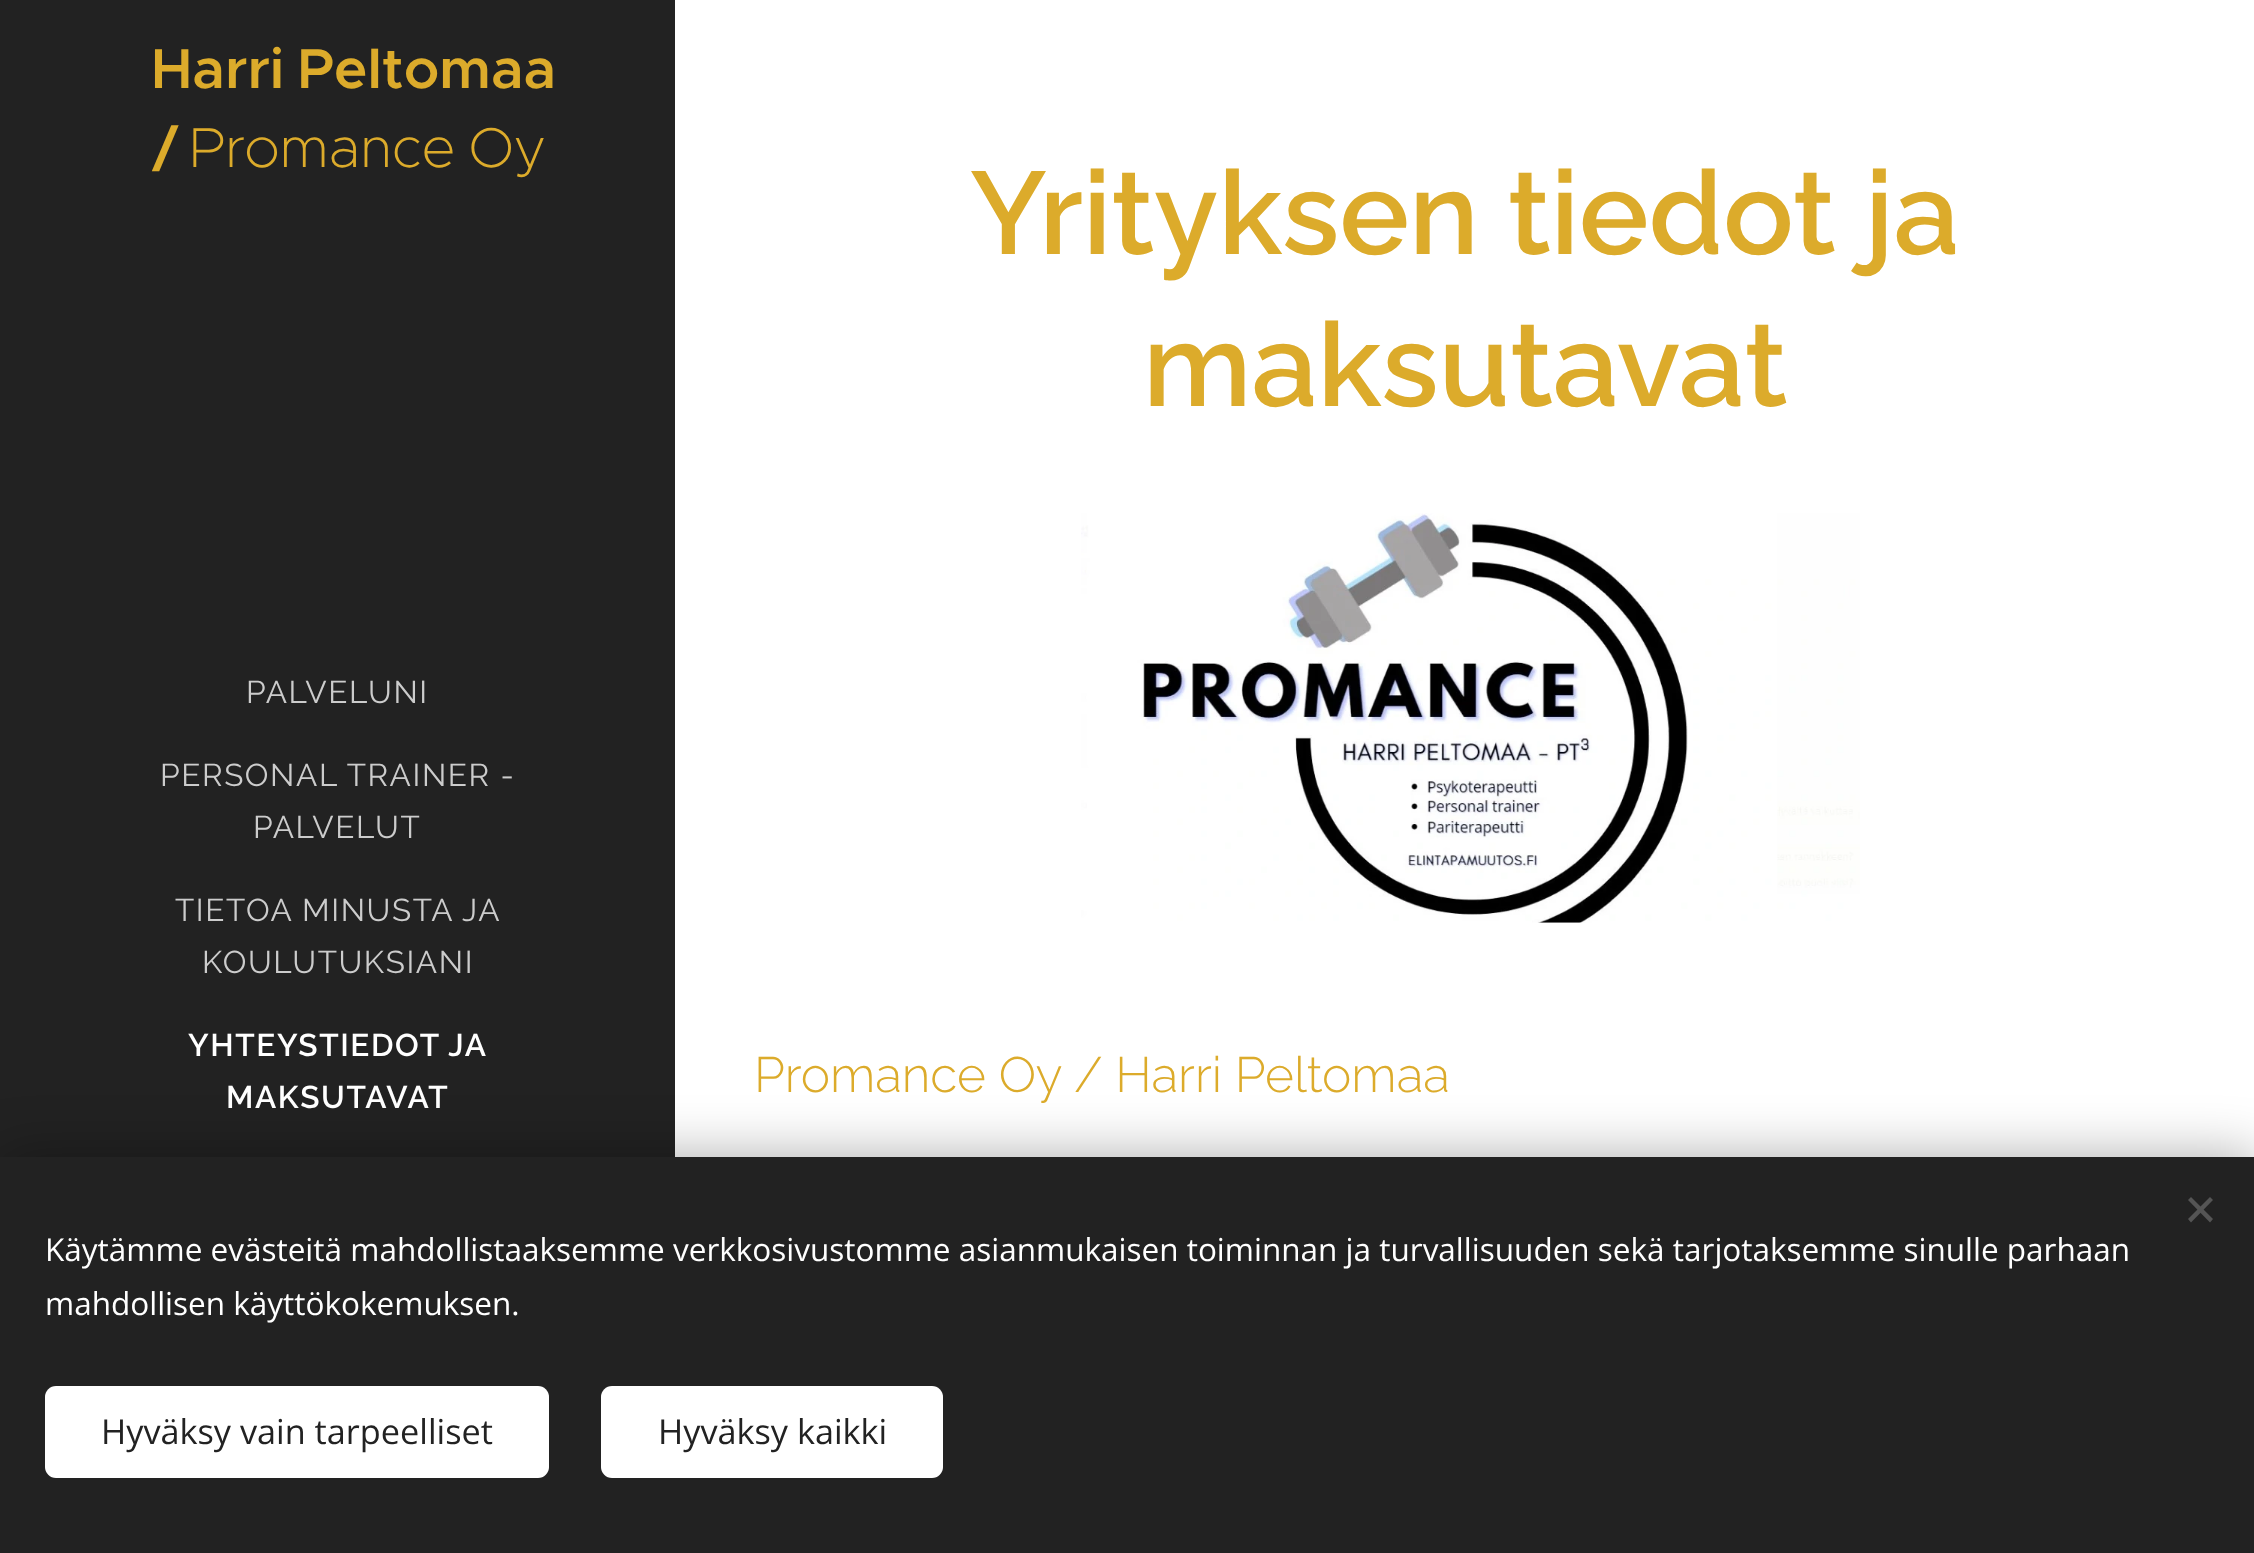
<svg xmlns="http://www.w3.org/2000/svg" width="2254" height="1553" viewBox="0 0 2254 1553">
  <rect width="100%" height="100%" fill="rgb(255,255,255)"/>
  <rect x="0" y="0" width="675" height="1157" fill="rgb(34,34,34)"/>
  <g font-family="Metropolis" font-size="56.25" font-weight="600" fill="rgb(220,171,43)">
    <text x="151" y="88" word-spacing="-3">Harri Peltomaa</text>
    <text x="153" y="167">/</text>
  </g>
  <text x="189" y="167" word-spacing="-3" font-family="Metropolis" font-size="56.25" font-weight="200" fill="rgb(220,171,43)">Promance Oy</text>
  <g font-family="Raleway" font-size="31.5" letter-spacing="1.6" fill="rgb(204,204,204)">
    <text x="246" y="703">PALVELUNI</text>
    <text x="160" y="786">PERSONAL TRAINER -</text>
    <text x="253" y="838">PALVELUT</text>
    <text x="175" y="921">TIETOA MINUSTA JA</text>
    <text x="202" y="973">KOULUTUKSIANI</text>
  </g>
  <g font-family="Raleway" font-size="31.5" font-weight="600" letter-spacing="1.6" fill="rgb(255,255,255)">
    <text x="188" y="1056">YHTEYSTIEDOT JA</text>
    <text x="226" y="1108">MAKSUTAVAT</text>
  </g>
  <g font-family="Raleway" font-size="117" font-weight="600" fill="rgb(220,171,43)">
    <text x="970" y="254">Yrityksen tiedot ja</text>
    <text x="1143" y="406">maksutavat</text>
  </g>
  <image x="1081" y="513" width="779" height="410" href="pic1.png"/>
  <text x="754" y="1092" font-family="Raleway" font-size="49.5" font-weight="300" fill="rgb(220,171,43)">Promance Oy / Harri Peltomaa</text>
  <rect x="0" y="1157" width="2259" height="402" fill="rgba(0,0,0,0.33)" filter="blur(28px)"/>
  <rect x="0" y="1157" width="2254" height="396" fill="rgb(34,34,34)"/>
  <path d="M2188 1219L2210 1197L2213 1200L2191 1222.5Z" fill="rgb(85,85,85)"/>
  <path d="M2191 1197L2213 1219L2210 1222.5L2188 1200Z" fill="rgb(85,85,85)"/>
  <g font-family="Open Sans" font-size="31.5" fill="rgb(255,255,255)">
    <text>
      <tspan x="45" y="1261">Käytämme evästeitä mahdollistaaksemme verkkosivustomme asianmukaisen toiminnan ja turvallisuuden sekä tarjotaksemme sinulle parhaan</tspan>
      <tspan x="45" y="1315">mahdollisen käyttökokemuksen.</tspan>
    </text>
  </g>
  <rect x="45" y="1386" width="504" height="92" rx="11" fill="rgb(255,255,255)"/>
  <text x="101" y="1444" font-family="Open Sans" font-size="34.25" fill="rgb(34,34,34)">Hyväksy vain tarpeelliset</text>
  <rect x="601" y="1386" width="342" height="92" rx="11" fill="rgb(255,255,255)"/>
  <text x="658" y="1444" font-family="Open Sans" font-size="34.25" fill="rgb(34,34,34)">Hyväksy kaikki</text>
</svg>
